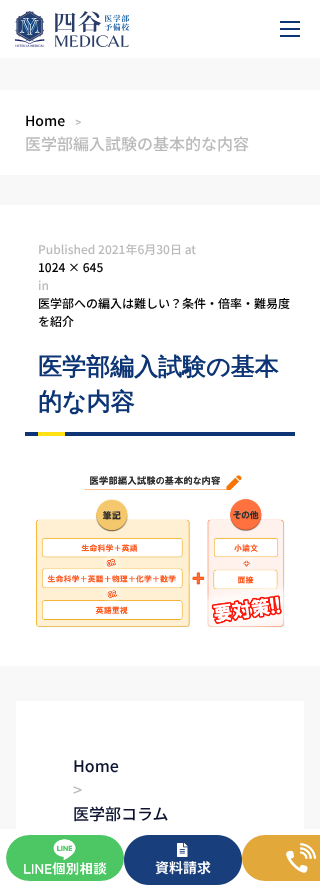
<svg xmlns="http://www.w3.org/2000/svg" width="320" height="889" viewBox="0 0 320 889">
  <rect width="100%" height="100%" fill="rgb(248,248,248)"/>
  <rect x="0" y="0" width="320" height="58" fill="rgb(255,255,255)"/>
  <image x="15" y="11" width="114" height="36" href="pic1.png"/>
  <rect x="280" y="21" width="20" height="2" fill="rgb(13,53,117)"/>
  <rect x="280" y="28" width="20" height="2" fill="rgb(13,53,117)"/>
  <rect x="280" y="35" width="20" height="2" fill="rgb(13,53,117)"/>
  <rect x="0" y="90" width="320" height="85" fill="rgb(255,255,255)"/>
  <text x="25" y="126" font-family="Noto Sans JP" font-size="14" font-weight="500" fill="rgb(0,0,0)">Home</text>
  <text x="75" y="126" font-family="Roboto" font-size="12" font-weight="500" fill="rgb(187,187,187)">&gt;</text>
  <text x="25" y="150" font-family="Noto Sans JP" font-size="16" font-weight="500" fill="rgb(187,187,187)">医学部編入試験の基本的な内容</text>
  <rect x="0" y="205" width="320" height="461" fill="rgb(255,255,255)"/>
  <text x="38" y="254" font-family="Noto Sans JP" font-size="12" font-weight="500" fill="rgb(187,187,187)">Published 2021年6月30日 at</text>
  <text x="38" y="272" font-family="Noto Sans JP" font-size="12" font-weight="500" fill="rgb(0,0,0)">1024 × 645</text>
  <text x="38" y="290" font-family="Noto Sans JP" font-size="12" font-weight="500" fill="rgb(187,187,187)">in</text>
  <g font-family="Noto Sans JP" font-size="12" font-weight="500" fill="rgb(0,0,0)">
    <text>
      <tspan x="38" y="308">医学部への編入は難しい？条件・倍率・難易度</tspan>
      <tspan x="38" y="326">を紹介</tspan>
    </text>
  </g>
  <rect x="25" y="432" width="270" height="4" fill="rgb(13,53,117)"/>
  <g font-family="WenQuanYi Zen Hei" font-size="24" font-weight="bold" fill="rgb(13,53,117)">
    <text>
      <tspan x="38" y="375">医学部編入試験の基本</tspan>
      <tspan x="38" y="410">的な内容</tspan>
    </text>
  </g>
  <rect x="38" y="432" width="27" height="4" fill="rgb(255,225,20)"/>
  <image x="36" y="475" width="249" height="153" href="pic2.png"/>
  <rect x="16" y="701" width="288" height="128" fill="rgb(255,255,255)"/>
  <text x="73" y="772" font-family="Noto Sans JP" font-size="16" font-weight="500" fill="rgb(14,20,48)">Home</text>
  <text x="73" y="796" font-family="Noto Sans JP" font-size="16" font-weight="500" fill="rgb(187,187,187)">&gt;</text>
  <text x="73" y="820" font-family="Noto Sans JP" font-size="16" font-weight="500" fill="rgb(14,20,48)">医学部コラム</text>
  <rect x="0" y="829" width="320" height="60" fill="rgb(255,255,255)"/>
  <image x="6" y="835" width="118" height="46" href="pic3.png"/>
  <image x="124" y="835" width="118" height="50" href="pic4.png"/>
  <image x="242" y="835" width="78" height="46" href="pic5.png"/>
</svg>
